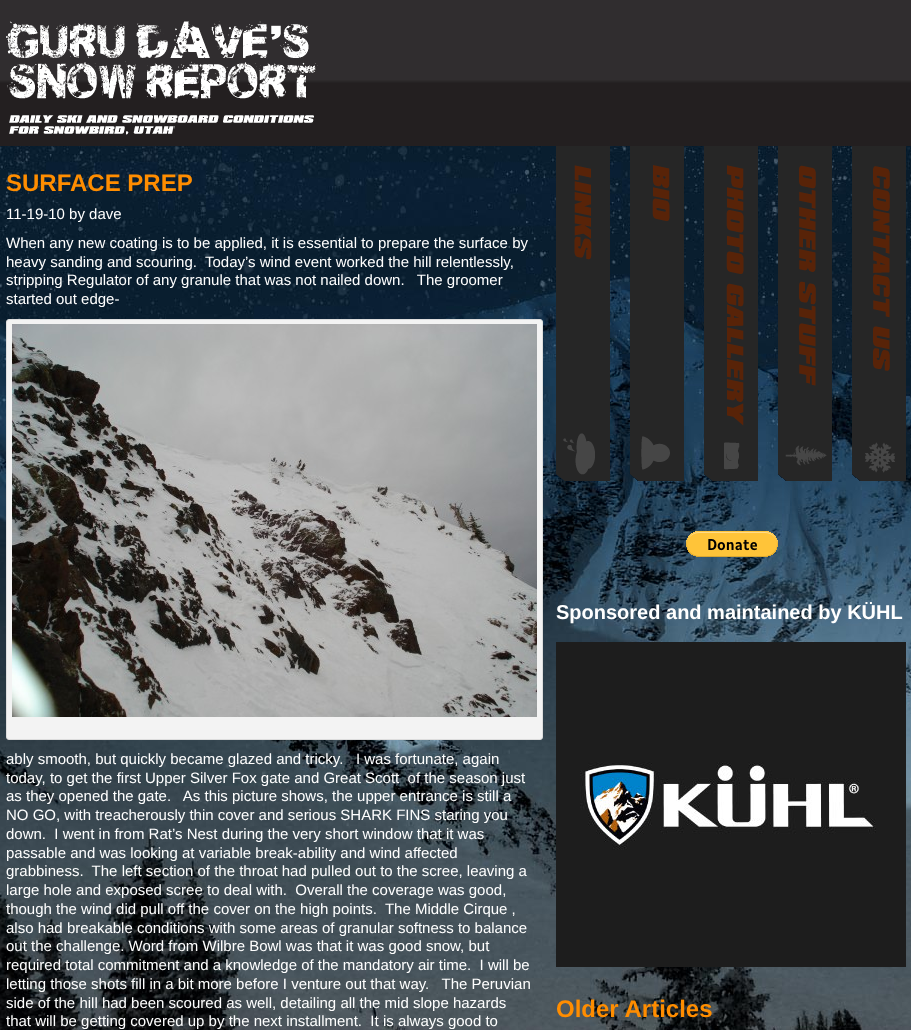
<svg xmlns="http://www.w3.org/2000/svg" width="911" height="1030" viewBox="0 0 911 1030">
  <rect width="100%" height="100%" fill="rgb(255,255,255)"/>
  <image x="0" y="0" width="911" height="146" href="pic1.png"/>
  <image x="6" y="21" width="312" height="114" href="pic2.png"/>
  <image x="0" y="146" width="911" height="884" href="pic3.png"/>
  <text x="6" y="191" font-family="Liberation Sans" font-size="24" font-weight="bold" fill="rgb(255,141,0)">SURFACE PREP</text>
  <g font-family="Liberation Sans" font-size="15" fill="rgb(255,255,255)">
    <text xml:space="preserve"><tspan x="6" y="219">11-19-10 by dave</tspan><tspan x="6" y="248">When any new coating is to be applied, it is essential to prepare the surface by</tspan><tspan x="6" y="267">heavy sanding and scouring.  Today’s wind event worked the hill relentlessly,</tspan><tspan x="6" y="285">stripping Regulator of any granule that was not nailed down.   The groomer</tspan><tspan x="6" y="304">started out edge-</tspan></text>
  </g>
  <rect x="6.5" y="319.5" width="536" height="420" rx="2.5" fill="rgb(243,243,243)" stroke="rgb(221,221,221)"/>
  <image x="12" y="324" width="525" height="393" href="pic4.png"/>
  <g font-family="Liberation Sans" font-size="15" fill="rgb(255,255,255)">
    <text xml:space="preserve"><tspan x="6" y="764">ably smooth, but quickly became glazed and tricky.   I was fortunate, again</tspan><tspan x="6" y="783">today, to get the first Upper Silver Fox gate and Great Scott  of the season just</tspan><tspan x="6" y="801">as they opened the gate.   As this picture shows, the upper entrance is still a</tspan><tspan x="6" y="820">NO GO, with treacherously thin cover and serious SHARK FINS staring you</tspan><tspan x="6" y="839">down.  I went in from Rat’s Nest during the very short window that it was</tspan><tspan x="6" y="858">passable and was looking at variable break-ability and wind affected</tspan><tspan x="6" y="876">grabbiness.  The left section of the throat had pulled out to the scree, leaving a</tspan><tspan x="6" y="895">large hole and exposed scree to deal with.  Overall the coverage was good,</tspan><tspan x="6" y="914">though the wind did pull off the cover on the high points.  The Middle Cirque ,</tspan><tspan x="6" y="933">also had breakable conditions with some areas of granular softness to balance</tspan><tspan x="6" y="951">out the challenge. Word from Wilbre Bowl was that it was good snow, but</tspan><tspan x="6" y="970">required total commitment and a knowledge of the mandatory air time.  I will be</tspan><tspan x="6" y="989">letting those shots fill in a bit more before I venture out that way.   The Peruvian</tspan><tspan x="6" y="1008">side of the hill had been scoured as well, detailing all the mid slope hazards</tspan><tspan x="6" y="1026">that will be getting covered up by the next installment.  It is always good to</tspan></text>
  </g>
  <image x="556" y="146" width="54" height="335" href="pic5.png"/>
  <image x="630" y="146" width="54" height="335" href="pic6.png"/>
  <image x="704" y="146" width="54" height="335" href="pic7.png"/>
  <image x="778" y="146" width="54" height="335" href="pic8.png"/>
  <image x="852" y="146" width="54" height="335" href="pic9.png"/>
  <image x="686" y="531" width="92" height="26" href="pic10.png"/>
  <text x="556" y="619" font-family="Liberation Sans" font-size="20" font-weight="bold" fill="rgb(255,255,255)">Sponsored and maintained by KÜHL</text>
  <image x="556" y="642" width="350" height="325" href="pic11.png"/>
  <text x="556" y="1017" font-family="Liberation Sans" font-size="24" font-weight="bold" fill="rgb(255,141,0)">Older Articles</text>
</svg>
